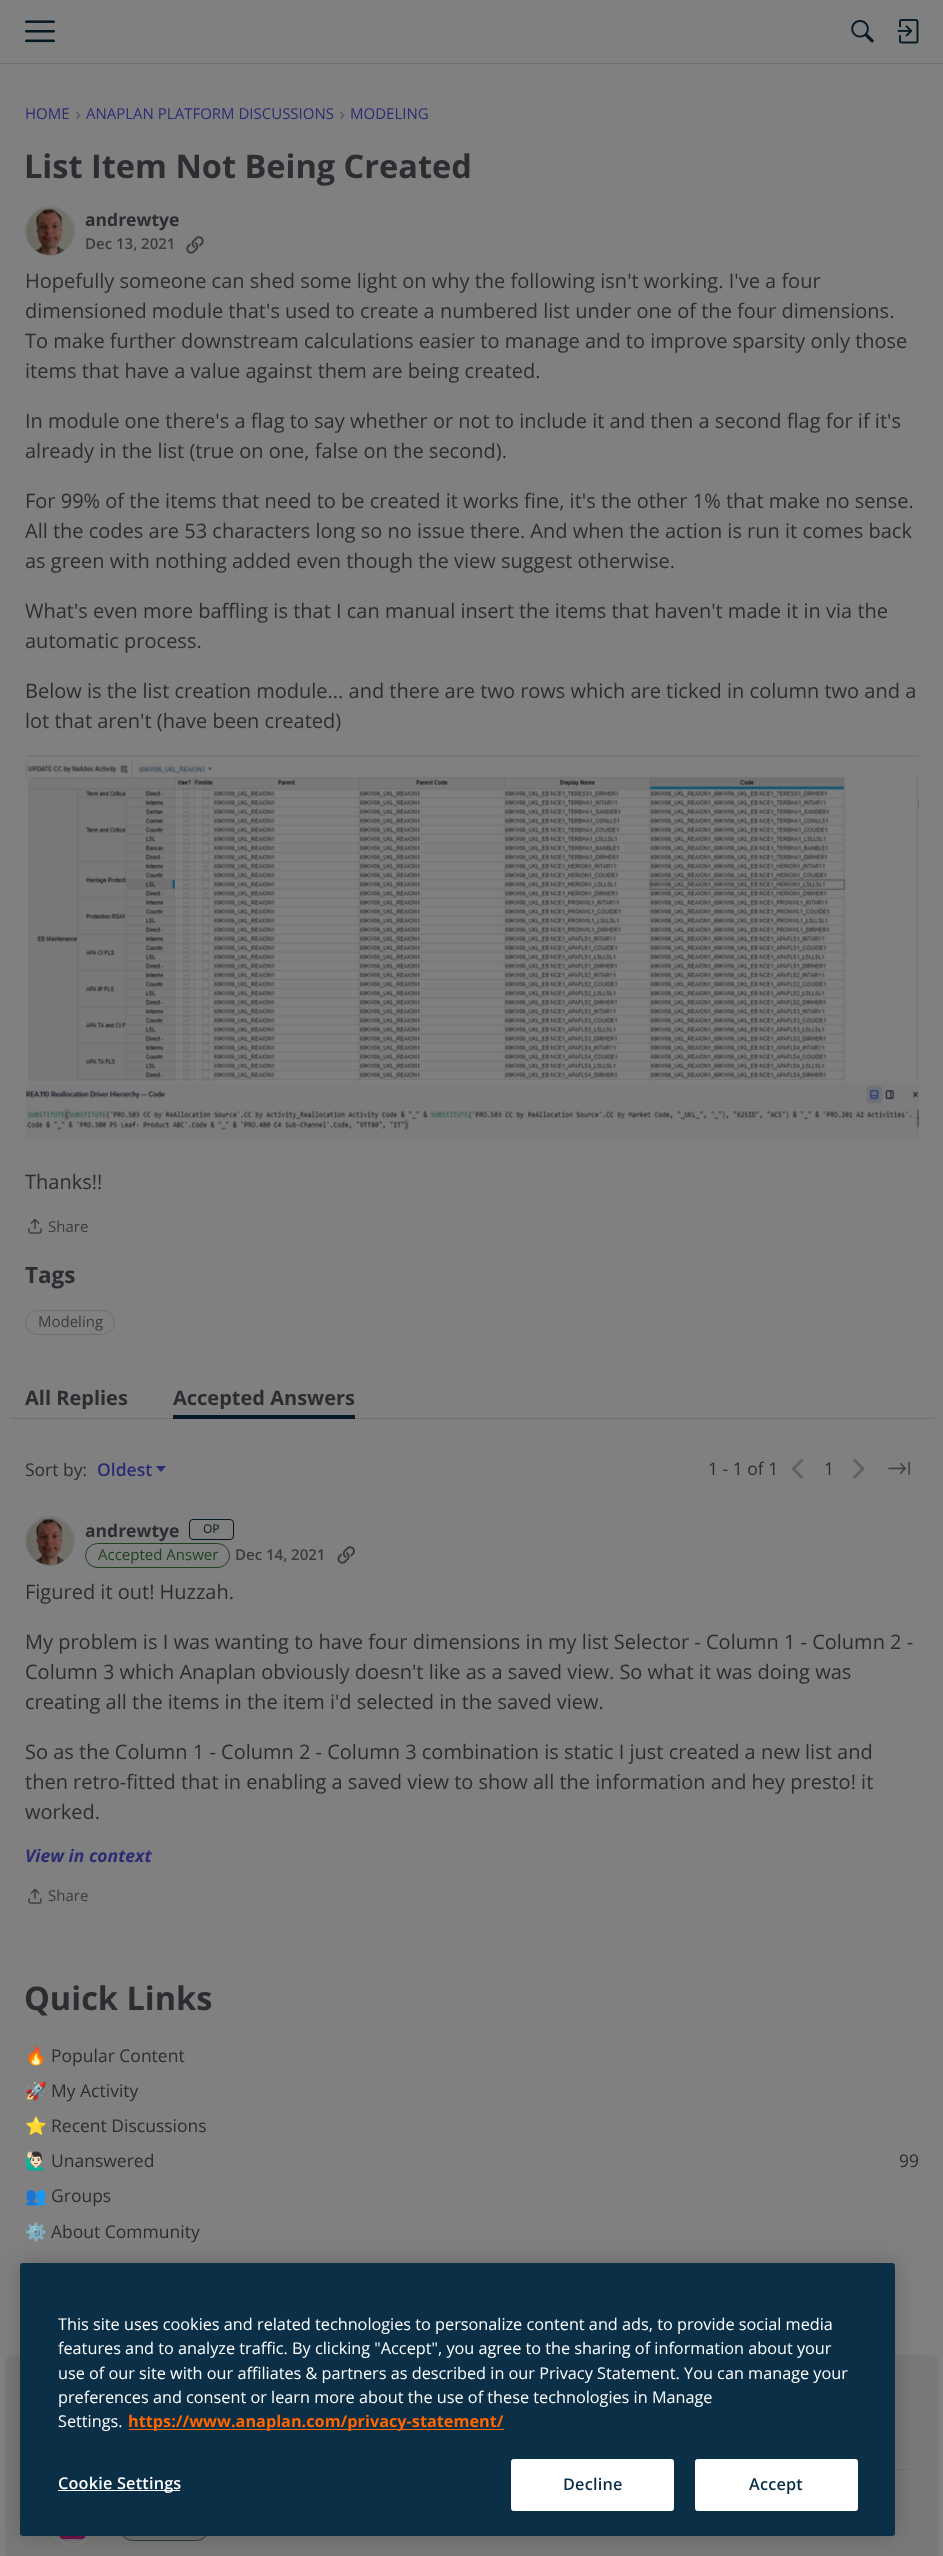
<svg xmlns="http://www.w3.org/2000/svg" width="943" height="2556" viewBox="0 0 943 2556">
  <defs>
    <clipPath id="clip1"><rect x="25" y="1386" width="103" height="23"/></clipPath>
    <clipPath id="clip2"><rect x="173" y="1386" width="182" height="23"/></clipPath>
  </defs>
  <rect width="100%" height="100%" fill="rgb(128,128,128)"/>
  <rect x="0" y="63" width="943" height="1" fill="rgb(111,111,112)"/>
  <image x="25" y="20" width="30" height="23" href="pic1.png"/>
  <image x="851" y="20" width="23" height="23" href="pic2.png"/>
  <image x="897" y="19" width="22" height="25" href="pic3.png"/>
  <text x="25" y="119" font-family="Open Sans" font-size="15" fill="rgb(44,44,117)">HOME</text>
  <text x="75" y="120" font-family="Liberation Sans" font-size="17.5" fill="rgb(85,87,89)">›</text>
  <text x="86" y="119" font-family="Open Sans" font-size="15" fill="rgb(44,44,117)">ANAPLAN PLATFORM DISCUSSIONS</text>
  <text x="339" y="120" font-family="Liberation Sans" font-size="17.5" fill="rgb(85,87,89)">›</text>
  <text x="350" y="119" font-family="Open Sans" font-size="15" fill="rgb(44,44,117)">MODELING</text>
  <text x="24" y="178" font-family="Open Sans" font-size="32.5" font-weight="bold" fill="rgb(43,45,49)">List Item Not Being Created</text>
  <circle cx="50" cy="231" r="24.5" fill="none" stroke="rgb(115,115,116)"/>
  <image x="26" y="207" width="48" height="48" href="pic4.png"/>
  <text x="85" y="226" font-family="Open Sans" font-size="17.5" font-weight="bold" fill="rgb(43,45,49)">andrewtye</text>
  <text x="85" y="249" font-family="Open Sans" font-size="15" font-weight="600" fill="rgb(59,59,59)">Dec 13, 2021</text>
  <image x="186" y="236" width="18" height="18" href="pic5.png"/>
  <g font-family="Open Sans" font-size="20" fill="rgb(43,45,49)">
    <text>
      <tspan x="25" y="288">Hopefully someone can shed some light on why the following isn't working. I've a four</tspan>
      <tspan x="25" y="318">dimensioned module that's used to create a numbered list under one of the four dimensions.</tspan>
      <tspan x="25" y="348">To make further downstream calculations easier to manage and to improve sparsity only those</tspan>
      <tspan x="25" y="378">items that have a value against them are being created.</tspan>
    </text>
    <text>
      <tspan x="25" y="428">In module one there's a flag to say whether or not to include it and then a second flag for if it's</tspan>
      <tspan x="25" y="458">already in the list (true on one, false on the second).</tspan>
    </text>
    <text>
      <tspan x="25" y="508">For 99% of the items that need to be created it works fine, it's the other 1% that make no sense.</tspan>
      <tspan x="25" y="538">All the codes are 53 characters long so no issue there. And when the action is run it comes back</tspan>
      <tspan x="25" y="568">as green with nothing added even though the view suggest otherwise.</tspan>
    </text>
    <text>
      <tspan x="25" y="618">What's even more baffling is that I can manual insert the items that haven't made it in via the</tspan>
      <tspan x="25" y="648">automatic process.</tspan>
    </text>
    <text>
      <tspan x="25" y="698">Below is the list creation module... and there are two rows which are ticked in column two and a</tspan>
      <tspan x="25" y="728">lot that aren't (have been created)</tspan>
    </text>
  </g>
  <image x="25" y="755" width="894" height="384" href="pic6.png"/>
  <text x="25" y="1189" font-family="Open Sans" font-size="20" fill="rgb(43,45,49)">Thanks!!</text>
  <image x="28" y="1218" width="14" height="16" href="pic7.png"/>
  <text x="48" y="1232" font-family="Open Sans" font-size="15" fill="rgb(59,59,59)">Share</text>
  <text x="25" y="1283" font-family="Open Sans" font-size="22.5" font-weight="bold" fill="rgb(43,45,49)">Tags</text>
  <rect x="25.5" y="1310.5" width="89" height="24" rx="12" fill="none" stroke="rgb(111,111,112)"/>
  <text x="38" y="1327" font-family="Open Sans" font-size="15" fill="rgb(59,59,59)">Modeling</text>
  <rect x="10" y="1418" width="924" height="1" fill="rgb(111,111,112)"/>
  <g clip-path="url(#clip1)">
    <text x="25" y="1405" font-family="Open Sans" font-size="20" font-weight="bold" fill="rgb(43,45,49)">All Replies</text>
  </g>
  <g clip-path="url(#clip2)">
    <text x="173" y="1405" font-family="Open Sans" font-size="20" font-weight="bold" fill="rgb(43,45,49)">Accepted Answers</text>
  </g>
  <rect x="173" y="1415" width="182" height="4" fill="rgb(5,24,35)"/>
  <text x="25" y="1476" font-family="Open Sans" font-size="17.5" fill="rgb(43,45,49)">Sort by:</text>
  <text x="97" y="1476" font-family="Open Sans" font-size="17.5" font-weight="600" fill="rgb(44,44,117)">Oldest</text>
  <path d="M156 1466H166L161 1472Z" fill="rgb(44,44,117)"/>
  <text x="708" y="1475" font-family="Open Sans" font-size="17.5" fill="rgb(43,45,49)">1 - 1 of 1</text>
  <image x="792" y="1458" width="12" height="21" href="pic8.png"/>
  <text x="824" y="1475" font-family="Open Sans" font-size="17.5" fill="rgb(43,45,49)">1</text>
  <image x="853" y="1458" width="12" height="21" href="pic9.png"/>
  <image x="888" y="1461" width="22" height="14" href="pic10.png"/>
  <circle cx="50" cy="1541" r="24.5" fill="none" stroke="rgb(115,115,116)"/>
  <image x="26" y="1517" width="48" height="48" href="pic11.png"/>
  <text x="85" y="1537" font-family="Open Sans" font-size="17.5" font-weight="bold" fill="rgb(43,45,49)">andrewtye</text>
  <rect x="189.5" y="1519.5" width="44" height="20" rx="3.5" fill="none" stroke="rgb(5,24,35)"/>
  <text x="203" y="1533" font-family="Open Sans" font-size="12" fill="rgb(5,24,35)">OP</text>
  <rect x="85.5" y="1543.5" width="144" height="24" rx="12" fill="none" stroke="rgb(28,67,31)"/>
  <text x="98" y="1560" font-family="Open Sans" font-size="15" fill="rgb(28,67,31)">Accepted Answer</text>
  <text x="235" y="1560" font-family="Open Sans" font-size="15" font-weight="600" fill="rgb(59,59,59)">Dec 14, 2021</text>
  <image x="337" y="1546" width="18" height="18" href="pic12.png"/>
  <g font-family="Open Sans" font-size="20" fill="rgb(43,45,49)">
    <text x="25" y="1599">Figured it out! Huzzah.</text>
    <text>
      <tspan x="25" y="1649">My problem is I was wanting to have four dimensions in my list Selector - Column 1 - Column 2 -</tspan>
      <tspan x="25" y="1679">Column 3 which Anaplan obviously doesn't like as a saved view. So what it was doing was</tspan>
      <tspan x="25" y="1709">creating all the items in the item i'd selected in the saved view.</tspan>
    </text>
    <text>
      <tspan x="25" y="1759">So as the Column 1 - Column 2 - Column 3 combination is static I just created a new list and</tspan>
      <tspan x="25" y="1789">then retro-fitted that in enabling a saved view to show all the information and hey presto! it</tspan>
      <tspan x="25" y="1819">worked.</tspan>
    </text>
  </g>
  <text x="25" y="1862" font-family="Open Sans" font-size="17.5" font-weight="bold" font-style="italic" fill="rgb(44,44,117)">View in context</text>
  <image x="28" y="1888" width="14" height="16" href="pic7.png"/>
  <text x="48" y="1901" font-family="Open Sans" font-size="15" fill="rgb(59,59,59)">Share</text>
  <text x="24" y="2010" font-family="Open Sans" font-size="32.5" font-weight="bold" fill="rgb(43,45,49)">Quick Links</text>
  <text x="25" y="2062" font-family="Noto Color Emoji" font-size="17.5" fill="rgb(43,45,49)">🔥</text>
  <text x="51" y="2062" font-family="Open Sans" font-size="17.5" fill="rgb(43,45,49)">Popular Content</text>
  <text x="25" y="2097" font-family="Noto Color Emoji" font-size="17.5" fill="rgb(43,45,49)">🚀</text>
  <text x="51" y="2097" font-family="Open Sans" font-size="17.5" fill="rgb(43,45,49)">My Activity</text>
  <text x="25" y="2132" font-family="Noto Color Emoji" font-size="17.5" fill="rgb(43,45,49)">⭐️</text>
  <text x="51" y="2132" font-family="Open Sans" font-size="17.5" fill="rgb(43,45,49)">Recent Discussions</text>
  <text x="25" y="2167" font-family="Noto Color Emoji" font-size="17.5" fill="rgb(43,45,49)">🙋🏻‍♂️</text>
  <g font-family="Open Sans" font-size="17.5" fill="rgb(43,45,49)">
    <text x="51" y="2167">Unanswered</text>
    <text x="899" y="2167">99</text>
  </g>
  <text x="25" y="2202" font-family="Noto Color Emoji" font-size="17.5" fill="rgb(43,45,49)">👥</text>
  <text x="51" y="2202" font-family="Open Sans" font-size="17.5" fill="rgb(43,45,49)">Groups</text>
  <text x="25" y="2238" font-family="Noto Color Emoji" font-size="17.5" fill="rgb(43,45,49)">⚙️</text>
  <text x="51" y="2238" font-family="Open Sans" font-size="17.5" fill="rgb(43,45,49)">About Community</text>
  <rect x="5" y="2355" width="934" height="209" rx="8" fill="rgb(121,121,119)"/>
  <rect x="895" y="2469" width="14" height="1" fill="rgb(111,111,112)"/>
  <circle cx="72.5" cy="2517.5" r="27.5" fill="rgb(128,128,128)"/>
  <circle cx="73" cy="2518" r="24.5" fill="none" stroke="rgb(115,115,116)"/>
  <image x="58" y="2536" width="29" height="5" href="pic13.png"/>
  <rect x="120" y="2516" width="89" height="25" rx="12.5" fill="rgb(112,113,113)"/>
  <rect x="120.5" y="2516.5" width="88" height="24" rx="12" fill="none" stroke="rgba(5,24,35,0.6)"/>
  <rect x="20" y="2263" width="875" height="273" rx="3" fill="rgba(0,0,0,0.2)" filter="blur(11px)"/>
  <rect x="20" y="2263" width="875" height="273" rx="3" fill="rgb(10,47,70)"/>
  <g font-family="Open Sans" font-size="16.25" fill="rgb(255,255,255)">
    <text>
      <tspan x="58" y="2330">This site uses cookies and related technologies to personalize content and ads, to provide social media</tspan>
      <tspan x="58" y="2354">features and to analyze traffic. By clicking "Accept", you agree to the sharing of information about your</tspan>
      <tspan x="58" y="2379">use of our site with our affiliates &amp; partners as described in our Privacy Statement. You can manage your</tspan>
      <tspan x="58" y="2403">preferences and consent or learn more about the use of these technologies in Manage</tspan>
      <tspan x="58" y="2427">Settings.</tspan>
    </text>
  </g>
  <rect x="129" y="2429" width="375" height="1" fill="rgb(255,102,0)"/>
  <text x="128" y="2427" font-family="Open Sans" font-size="16.25" font-weight="bold" fill="rgb(255,102,0)">https://www.anaplan.com/privacy-statement/</text>
  <rect x="58" y="2490" width="122" height="1" fill="rgb(255,255,255)"/>
  <text x="58" y="2489" font-family="Open Sans" font-size="16.25" font-weight="600" letter-spacing="0.2" fill="rgb(255,255,255)">Cookie Settings</text>
  <rect x="511.5" y="2459.5" width="162" height="51" rx="2" fill="rgb(255,255,255)" stroke="rgb(255,255,255)"/>
  <text x="563" y="2490" font-family="Open Sans" font-size="16.25" font-weight="600" letter-spacing="0.2" fill="rgb(10,47,70)">Decline</text>
  <rect x="695.5" y="2459.5" width="162" height="51" rx="2" fill="rgb(255,255,255)" stroke="rgb(255,255,255)"/>
  <text x="749" y="2490" font-family="Open Sans" font-size="16.25" font-weight="600" letter-spacing="0.2" fill="rgb(10,47,70)">Accept</text>
</svg>
